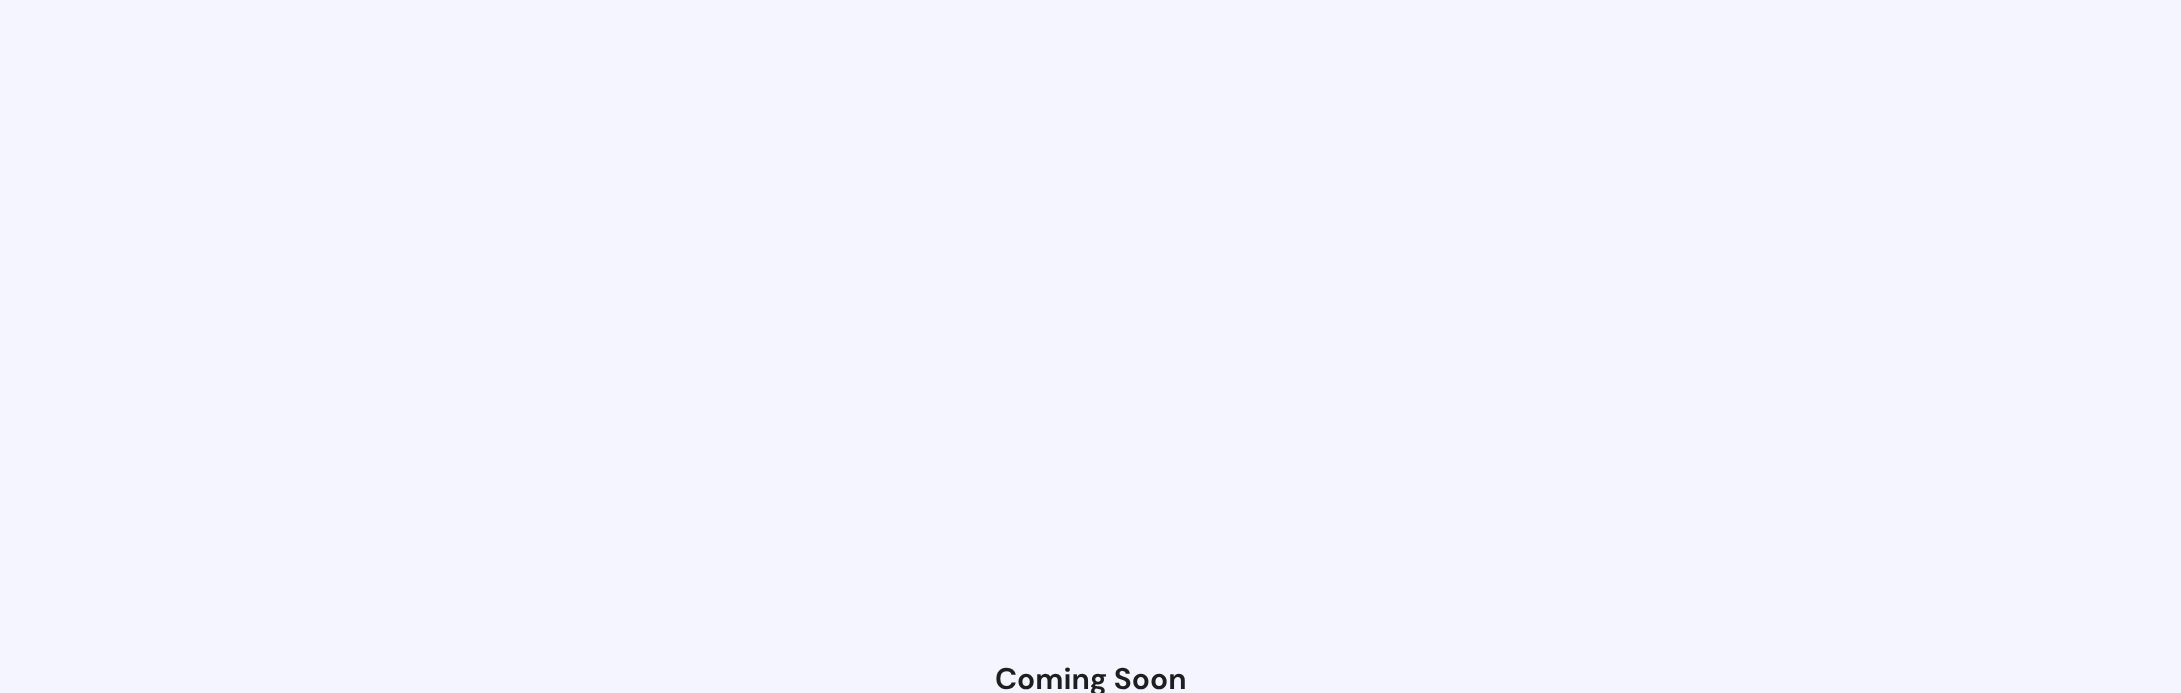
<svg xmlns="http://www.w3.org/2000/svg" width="2181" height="693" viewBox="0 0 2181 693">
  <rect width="100%" height="100%" fill="rgb(244,245,255)"/>
  <text x="995" y="689" font-family="DM Sans" font-size="30" font-weight="bold" fill="rgb(29,30,32)">Coming Soon</text>
</svg>
